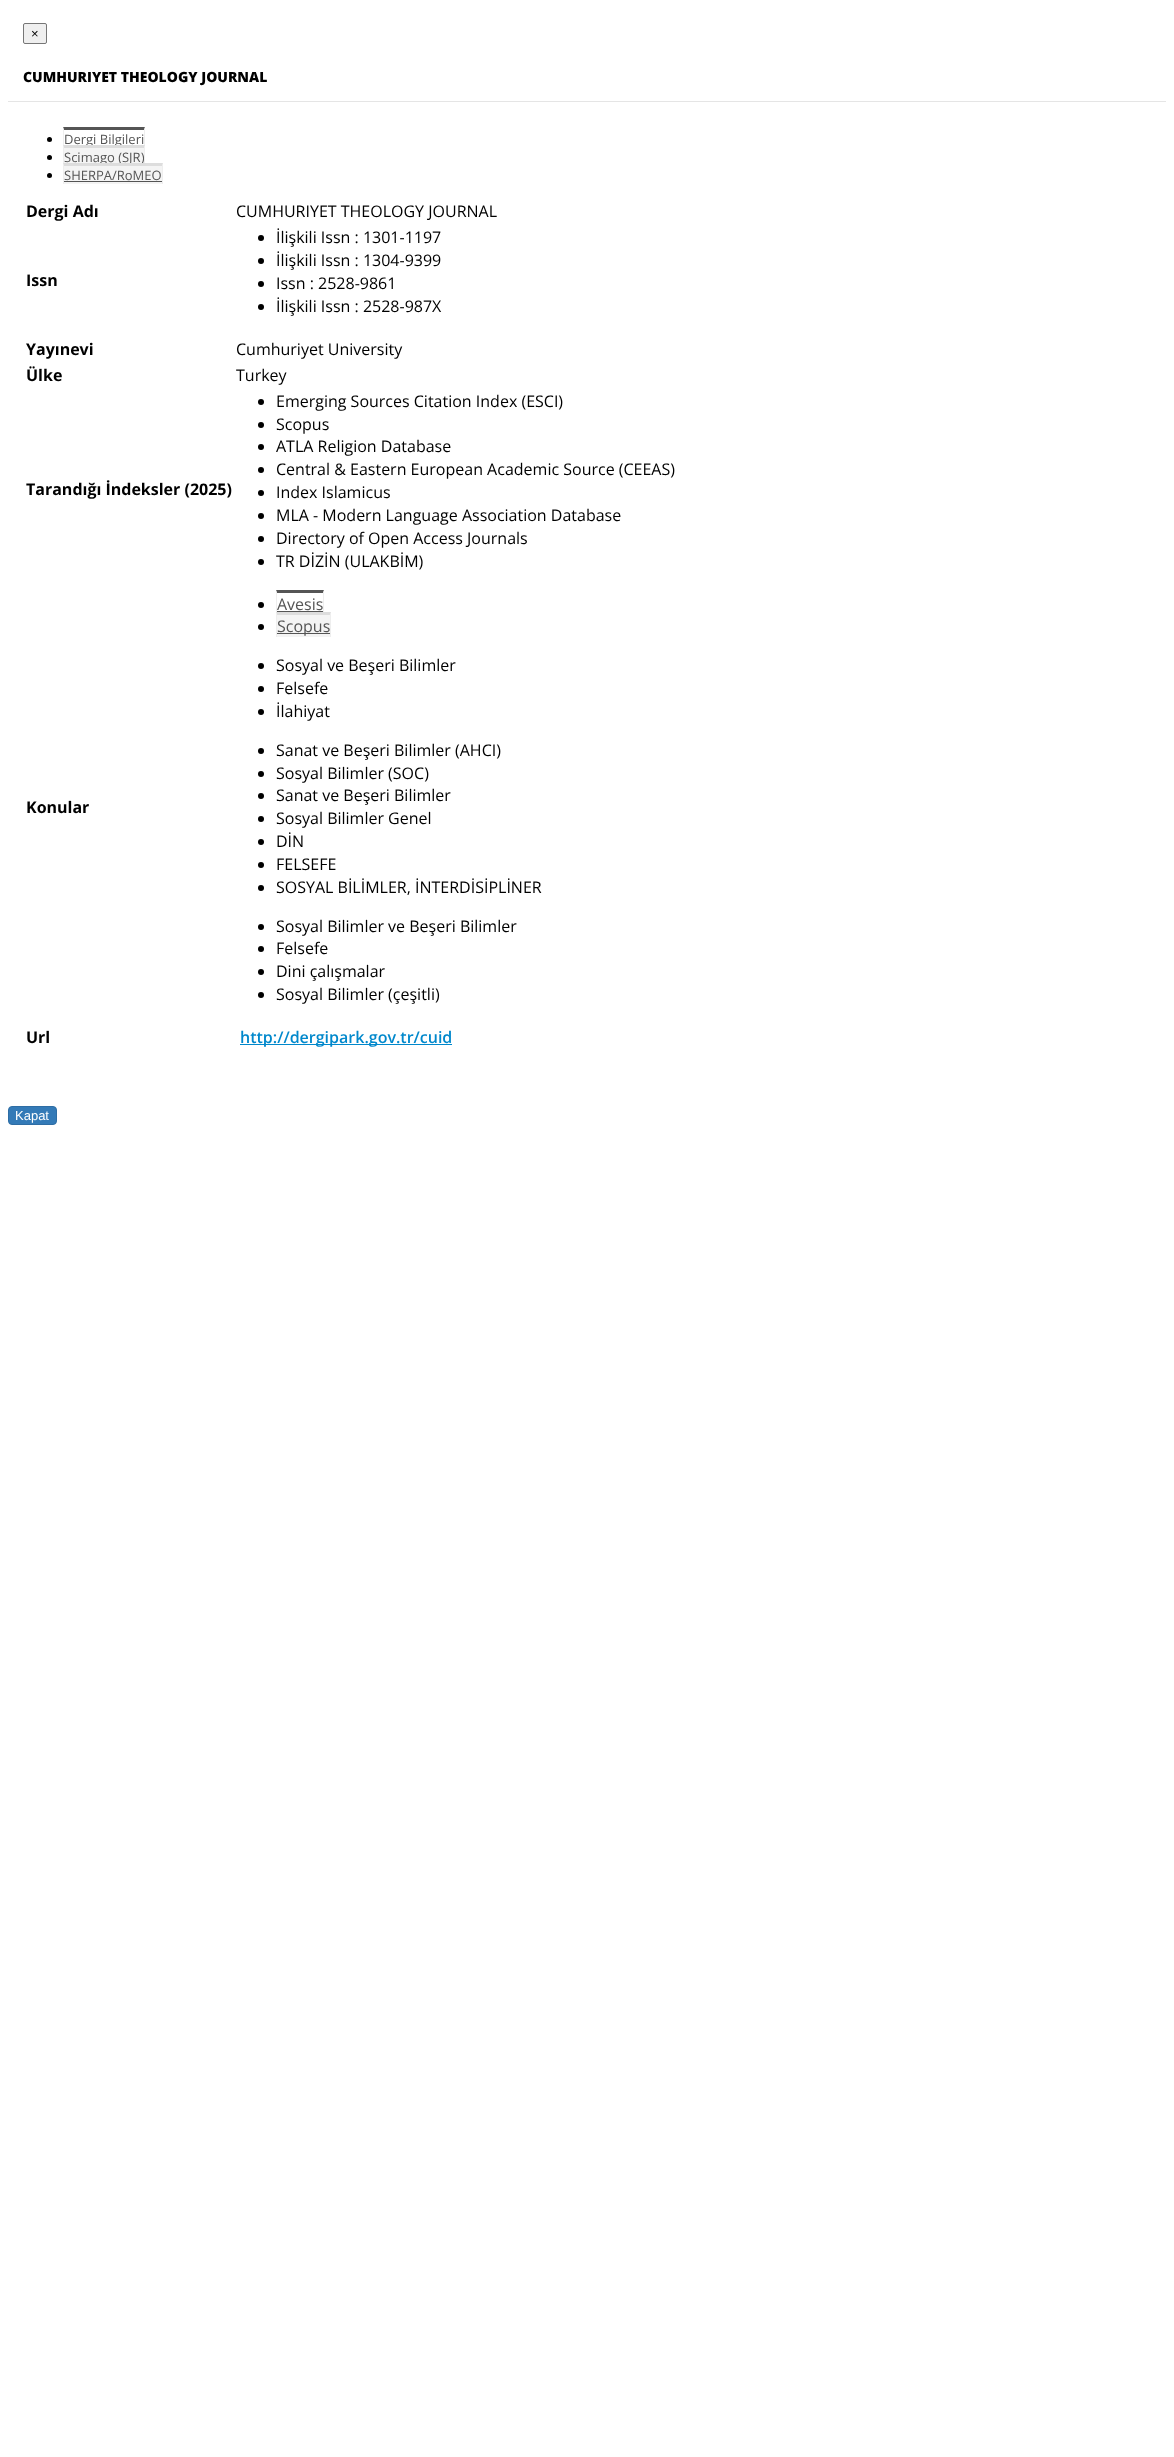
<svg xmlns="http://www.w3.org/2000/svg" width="1174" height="2457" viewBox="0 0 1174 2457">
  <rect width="100%" height="100%" fill="rgb(255,255,255)"/>
  <rect x="8" y="101" width="1158" height="1" fill="rgb(229,229,229)"/>
  <rect x="23.5" y="23.5" width="23" height="20" rx="1.5" fill="rgb(239,239,239)" stroke="rgb(118,118,118)"/>
  <text x="31" y="38" font-family="Liberation Sans" font-size="13" fill="rgb(0,0,0)">×</text>
  <text x="23" y="82" font-family="Open Sans" font-size="14" font-weight="800" fill="rgb(0,0,0)">CUMHURIYET THEOLOGY JOURNAL</text>
  <circle cx="49.5" cy="139.5" r="2.5" fill="rgb(0,0,0)"/>
  <text x="64" y="144" font-family="Open Sans" font-size="13" fill="rgb(85,85,85)">Dergi Bilgileri</text>
  <path d="M63 127H145L144 130H64Z" fill="rgb(85,85,85)"/>
  <path d="M145 127V148H144V130Z" fill="rgb(238,238,238)"/>
  <path d="M63 148V127L64 130V148Z" fill="rgb(238,238,238)"/>
  <circle cx="49.5" cy="157.5" r="2.5" fill="rgb(0,0,0)"/>
  <rect x="63" y="145" width="82" height="18" fill="rgb(244,244,244)"/>
  <text x="64" y="162" font-family="Open Sans" font-size="13" fill="rgb(85,85,85)">Scimago (SJR)</text>
  <path d="M63 145H145L144 148H64Z" fill="rgb(221,221,221)"/>
  <path d="M145 145V166H144V148Z" fill="rgb(238,238,238)"/>
  <path d="M63 166V145L64 148V166Z" fill="rgb(238,238,238)"/>
  <circle cx="49.5" cy="175.5" r="2.5" fill="rgb(0,0,0)"/>
  <rect x="63" y="163" width="100" height="21" fill="rgb(244,244,244)"/>
  <text x="64" y="180" font-family="Open Sans" font-size="13" fill="rgb(85,85,85)">SHERPA/RoMEO</text>
  <path d="M63 163H163L162 166H64Z" fill="rgb(221,221,221)"/>
  <path d="M163 163V184H162V166Z" fill="rgb(238,238,238)"/>
  <path d="M63 184V163L64 166V184Z" fill="rgb(238,238,238)"/>
  <rect x="64" y="181" width="98" height="1" fill="rgb(85,85,85)"/>
  <text x="26" y="217" font-family="Open Sans" font-size="16" font-weight="bold" fill="rgb(0,0,0)">Dergi Adı</text>
  <text x="236" y="217" font-family="Open Sans" font-size="16" fill="rgb(0,0,0)">CUMHURIYET THEOLOGY JOURNAL</text>
  <text x="26" y="286" font-family="Open Sans" font-size="16" font-weight="bold" fill="rgb(0,0,0)">Issn</text>
  <circle cx="261" cy="238" r="3" fill="rgb(0,0,0)"/>
  <text x="276" y="243" font-family="Open Sans" font-size="16" fill="rgb(0,0,0)">İlişkili Issn : 1301-1197</text>
  <circle cx="261" cy="261" r="3" fill="rgb(0,0,0)"/>
  <text x="276" y="266" font-family="Open Sans" font-size="16" fill="rgb(0,0,0)">İlişkili Issn : 1304-9399</text>
  <circle cx="261" cy="284" r="3" fill="rgb(0,0,0)"/>
  <text x="276" y="289" font-family="Open Sans" font-size="16" fill="rgb(0,0,0)">Issn : 2528-9861</text>
  <circle cx="261" cy="307" r="3" fill="rgb(0,0,0)"/>
  <text x="276" y="312" font-family="Open Sans" font-size="16" fill="rgb(0,0,0)">İlişkili Issn : 2528-987X</text>
  <text x="26" y="355" font-family="Open Sans" font-size="16" font-weight="bold" fill="rgb(0,0,0)">Yayınevi</text>
  <text x="236" y="355" font-family="Open Sans" font-size="16" fill="rgb(0,0,0)">Cumhuriyet University</text>
  <text x="26" y="381" font-family="Open Sans" font-size="16" font-weight="bold" fill="rgb(0,0,0)">Ülke</text>
  <text x="236" y="381" font-family="Open Sans" font-size="16" fill="rgb(0,0,0)">Turkey</text>
  <text x="26" y="495" font-family="Open Sans" font-size="16" font-weight="bold" fill="rgb(0,0,0)">Tarandığı İndeksler (2025)</text>
  <circle cx="261" cy="402" r="3" fill="rgb(0,0,0)"/>
  <text x="276" y="407" font-family="Open Sans" font-size="16" fill="rgb(0,0,0)">Emerging Sources Citation Index (ESCI)</text>
  <circle cx="261" cy="425" r="3" fill="rgb(0,0,0)"/>
  <text x="276" y="430" font-family="Open Sans" font-size="16" fill="rgb(0,0,0)">Scopus</text>
  <circle cx="261" cy="447" r="3" fill="rgb(0,0,0)"/>
  <text x="276" y="452" font-family="Open Sans" font-size="16" fill="rgb(0,0,0)">ATLA Religion Database</text>
  <circle cx="261" cy="470" r="3" fill="rgb(0,0,0)"/>
  <text x="276" y="475" font-family="Open Sans" font-size="16" fill="rgb(0,0,0)">Central &amp; Eastern European Academic Source (CEEAS)</text>
  <circle cx="261" cy="493" r="3" fill="rgb(0,0,0)"/>
  <text x="276" y="498" font-family="Open Sans" font-size="16" fill="rgb(0,0,0)">Index Islamicus</text>
  <circle cx="261" cy="516" r="3" fill="rgb(0,0,0)"/>
  <text x="276" y="521" font-family="Open Sans" font-size="16" fill="rgb(0,0,0)">MLA - Modern Language Association Database</text>
  <circle cx="261" cy="539" r="3" fill="rgb(0,0,0)"/>
  <text x="276" y="544" font-family="Open Sans" font-size="16" fill="rgb(0,0,0)">Directory of Open Access Journals</text>
  <circle cx="261" cy="562" r="3" fill="rgb(0,0,0)"/>
  <text x="276" y="567" font-family="Open Sans" font-size="16" fill="rgb(0,0,0)">TR DİZİN (ULAKBİM)</text>
  <text x="26" y="813" font-family="Open Sans" font-size="16" font-weight="bold" fill="rgb(0,0,0)">Konular</text>
  <circle cx="261" cy="605" r="3" fill="rgb(0,0,0)"/>
  <path d="M276 590H324L323 593H277Z" fill="rgb(85,85,85)"/>
  <path d="M324 590V615H323V593ZM276 615V590L277 593V615Z" fill="rgb(238,238,238)"/>
  <text x="277" y="610" font-family="Open Sans" font-size="16" fill="rgb(85,85,85)">Avesis</text>
  <rect x="277" y="611" width="46" height="1" fill="rgb(85,85,85)"/>
  <circle cx="261" cy="627" r="3" fill="rgb(0,0,0)"/>
  <rect x="276" y="612" width="55" height="25" fill="rgb(244,244,244)"/>
  <path d="M276 612H331L330 615H277Z" fill="rgb(221,221,221)"/>
  <path d="M331 612V637H330V615ZM276 637V612L277 615V637Z" fill="rgb(238,238,238)"/>
  <rect x="277" y="633" width="53" height="1" fill="rgb(85,85,85)"/>
  <text x="277" y="632" font-family="Open Sans" font-size="16" fill="rgb(85,85,85)">Scopus</text>
  <circle cx="261" cy="666" r="3" fill="rgb(0,0,0)"/>
  <text x="276" y="671" font-family="Open Sans" font-size="16" fill="rgb(0,0,0)">Sosyal ve Beşeri Bilimler</text>
  <circle cx="261" cy="689" r="3" fill="rgb(0,0,0)"/>
  <text x="276" y="694" font-family="Open Sans" font-size="16" fill="rgb(0,0,0)">Felsefe</text>
  <circle cx="261" cy="712" r="3" fill="rgb(0,0,0)"/>
  <text x="276" y="717" font-family="Open Sans" font-size="16" fill="rgb(0,0,0)">İlahiyat</text>
  <circle cx="261" cy="751" r="3" fill="rgb(0,0,0)"/>
  <text x="276" y="756" font-family="Open Sans" font-size="16" fill="rgb(0,0,0)">Sanat ve Beşeri Bilimler (AHCI)</text>
  <circle cx="261" cy="774" r="3" fill="rgb(0,0,0)"/>
  <text x="276" y="779" font-family="Open Sans" font-size="16" fill="rgb(0,0,0)">Sosyal Bilimler (SOC)</text>
  <circle cx="261" cy="796" r="3" fill="rgb(0,0,0)"/>
  <text x="276" y="801" font-family="Open Sans" font-size="16" fill="rgb(0,0,0)">Sanat ve Beşeri Bilimler</text>
  <circle cx="261" cy="819" r="3" fill="rgb(0,0,0)"/>
  <text x="276" y="824" font-family="Open Sans" font-size="16" fill="rgb(0,0,0)">Sosyal Bilimler Genel</text>
  <circle cx="261" cy="842" r="3" fill="rgb(0,0,0)"/>
  <text x="276" y="847" font-family="Open Sans" font-size="16" fill="rgb(0,0,0)">DİN</text>
  <circle cx="261" cy="865" r="3" fill="rgb(0,0,0)"/>
  <text x="276" y="870" font-family="Open Sans" font-size="16" fill="rgb(0,0,0)">FELSEFE</text>
  <circle cx="261" cy="888" r="3" fill="rgb(0,0,0)"/>
  <text x="276" y="893" font-family="Open Sans" font-size="16" fill="rgb(0,0,0)">SOSYAL BİLİMLER, İNTERDİSİPLİNER</text>
  <circle cx="261" cy="927" r="3" fill="rgb(0,0,0)"/>
  <text x="276" y="932" font-family="Open Sans" font-size="16" fill="rgb(0,0,0)">Sosyal Bilimler ve Beşeri Bilimler</text>
  <circle cx="261" cy="949" r="3" fill="rgb(0,0,0)"/>
  <text x="276" y="954" font-family="Open Sans" font-size="16" fill="rgb(0,0,0)">Felsefe</text>
  <circle cx="261" cy="972" r="3" fill="rgb(0,0,0)"/>
  <text x="276" y="977" font-family="Open Sans" font-size="16" fill="rgb(0,0,0)">Dini çalışmalar</text>
  <circle cx="261" cy="995" r="3" fill="rgb(0,0,0)"/>
  <text x="276" y="1000" font-family="Open Sans" font-size="16" fill="rgb(0,0,0)">Sosyal Bilimler (çeşitli)</text>
  <text x="26" y="1043" font-family="Open Sans" font-size="16" font-weight="bold" fill="rgb(0,0,0)">Url</text>
  <rect x="240" y="1044" width="212" height="1" fill="rgb(0,136,204)"/>
  <text x="240" y="1043" font-family="Open Sans" font-size="16" font-weight="600" fill="rgb(0,136,204)">http://dergipark.gov.tr/cuid</text>
  <rect x="8.5" y="1106.5" width="48" height="18" rx="3.5" fill="rgb(51,122,183)" stroke="rgb(46,109,164)"/>
  <text x="15" y="1120" font-family="Liberation Sans" font-size="13" fill="rgb(255,255,255)">Kapat</text>
</svg>
